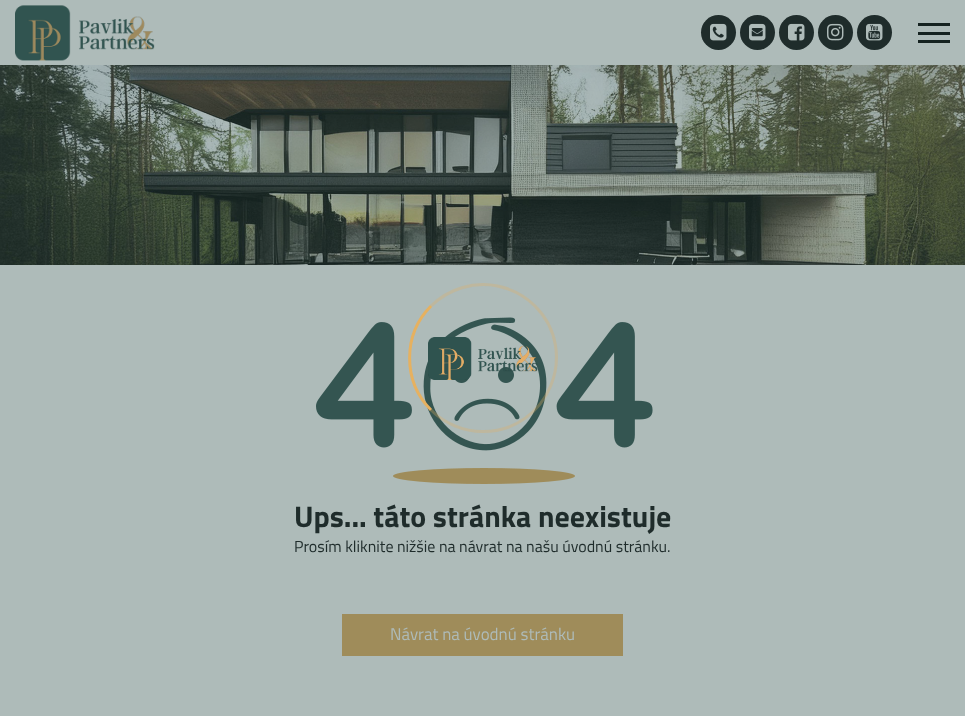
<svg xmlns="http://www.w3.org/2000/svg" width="965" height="716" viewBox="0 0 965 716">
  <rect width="100%" height="100%" fill="rgb(174,187,185)"/>
  <image x="316" y="317" width="337" height="167" href="pic9.png"/>
  <path d="M431 306C448.5 289 473.5 281 497.5 286C511.5 289 525 296 535 306C581 352 548 431.5 483 431.5C463.5 431.5 444.5 423.5 431 410" fill="none" stroke="rgba(230,177,96,0.3)" stroke-width="3"/>
  <path d="M431 410C402.5 381.5 402.5 334.5 431 306" fill="none" stroke="rgb(230,177,96)" stroke-width="3"/>
  <image x="428" y="337" width="110" height="43" href="pic1.png"/>
  <image x="15" y="5" width="140" height="56" href="pic2.png"/>
  <circle cx="718.5" cy="32.5" r="17.5" fill="rgb(31,44,43)"/>
  <image x="710" y="23" width="17" height="18" href="pic3.png"/>
  <circle cx="757.5" cy="32.5" r="17.5" fill="rgb(31,44,43)"/>
  <image x="749" y="23" width="17" height="18" href="pic4.png"/>
  <circle cx="796.5" cy="32.5" r="17.5" fill="rgb(31,44,43)"/>
  <image x="788" y="23" width="17" height="18" href="pic5.png"/>
  <circle cx="835.5" cy="32.5" r="17.5" fill="rgb(31,44,43)"/>
  <image x="827" y="23" width="17" height="18" href="pic6.png"/>
  <circle cx="874.5" cy="32.5" r="17.5" fill="rgb(31,44,43)"/>
  <image x="866" y="23" width="17" height="18" href="pic7.png"/>
  <rect x="918" y="23" width="32" height="3" fill="rgb(21,34,32)"/>
  <rect x="918" y="40" width="32" height="3" fill="rgb(21,34,32)"/>
  <rect x="918" y="32" width="32" height="3" fill="rgb(21,34,32)"/>
  <image x="0" y="65" width="965" height="200" href="pic8.png"/>
  <text x="294" y="527" font-family="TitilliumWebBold" font-size="29.9" font-weight="bold" fill="rgb(31,44,43)">Ups... táto stránka neexistuje</text>
  <text x="294" y="552" font-family="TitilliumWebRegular" font-size="16" fill="rgb(31,44,43)">Prosím kliknite nižšie na návrat na našu úvodnú stránku.</text>
  <rect x="342" y="614" width="281" height="42" fill="rgb(159,140,90)"/>
  <text x="390" y="640" font-family="TitilliumWebRegular" font-size="17" fill="rgb(174,187,185)">Návrat na úvodnú stránku</text>
</svg>
